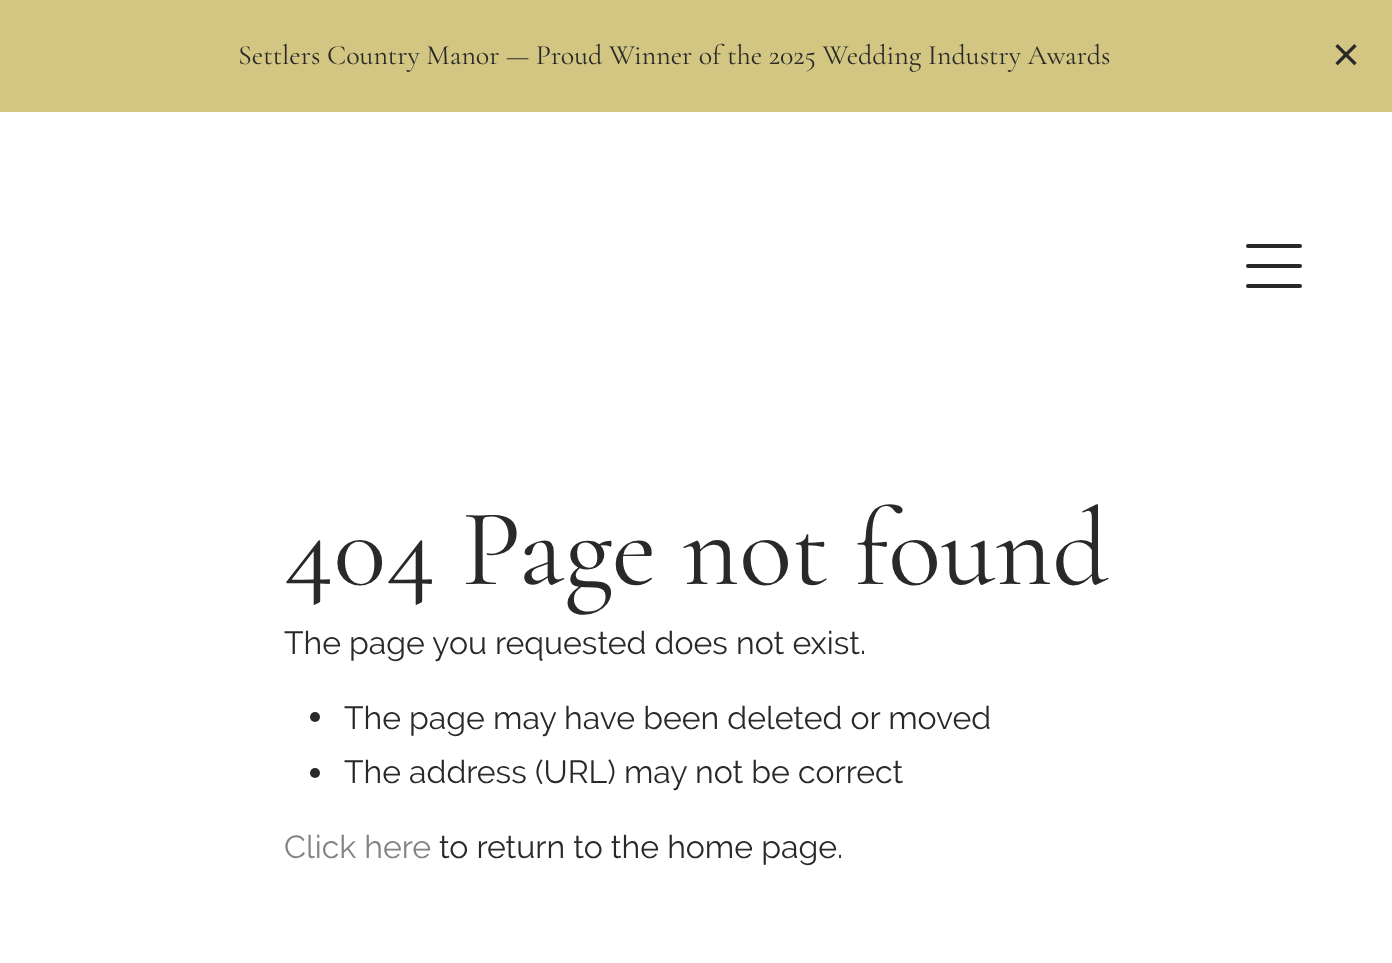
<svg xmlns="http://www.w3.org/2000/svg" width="1392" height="963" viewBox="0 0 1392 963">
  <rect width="100%" height="100%" fill="rgb(255,255,255)"/>
  <rect x="0" y="0" width="1392" height="112" fill="rgb(210,198,130)"/>
  <text x="238" y="64" font-family="Cormorant Garamond" font-size="28" fill="rgb(41,41,41)">Settlers Country Manor — Proud Winner of the 2025 Wedding Industry Awards</text>
  <image x="1335" y="44" width="22" height="22" href="pic1.png"/>
  <rect x="1246" y="264" width="56" height="4" rx="2" fill="rgb(41,41,41)"/>
  <rect x="1246" y="244" width="56" height="4" rx="2" fill="rgb(41,41,41)"/>
  <rect x="1246" y="284" width="56" height="4" rx="2" fill="rgb(41,41,41)"/>
  <text x="284" y="584" font-family="Cormorant Garamond" font-size="110" fill="rgb(41,41,41)">404 Page not found</text>
  <text x="284" y="654" font-family="Raleway" font-size="32" fill="rgb(41,41,41)">The page you requested does not exist.</text>
  <circle cx="315" cy="717" r="5" fill="rgb(41,41,41)"/>
  <text x="344" y="729" font-family="Raleway" font-size="32" fill="rgb(41,41,41)">The page may have been deleted or moved</text>
  <circle cx="315" cy="773" r="5" fill="rgb(41,41,41)"/>
  <text x="344" y="783" font-family="Raleway" font-size="32" fill="rgb(41,41,41)">The address (URL) may not be correct</text>
  <text x="284" y="858" font-family="Raleway" font-size="32" fill="rgb(131,131,131)">Click here</text>
  <text x="439" y="858" font-family="Raleway" font-size="32" fill="rgb(41,41,41)">to return to the home page.</text>
</svg>
